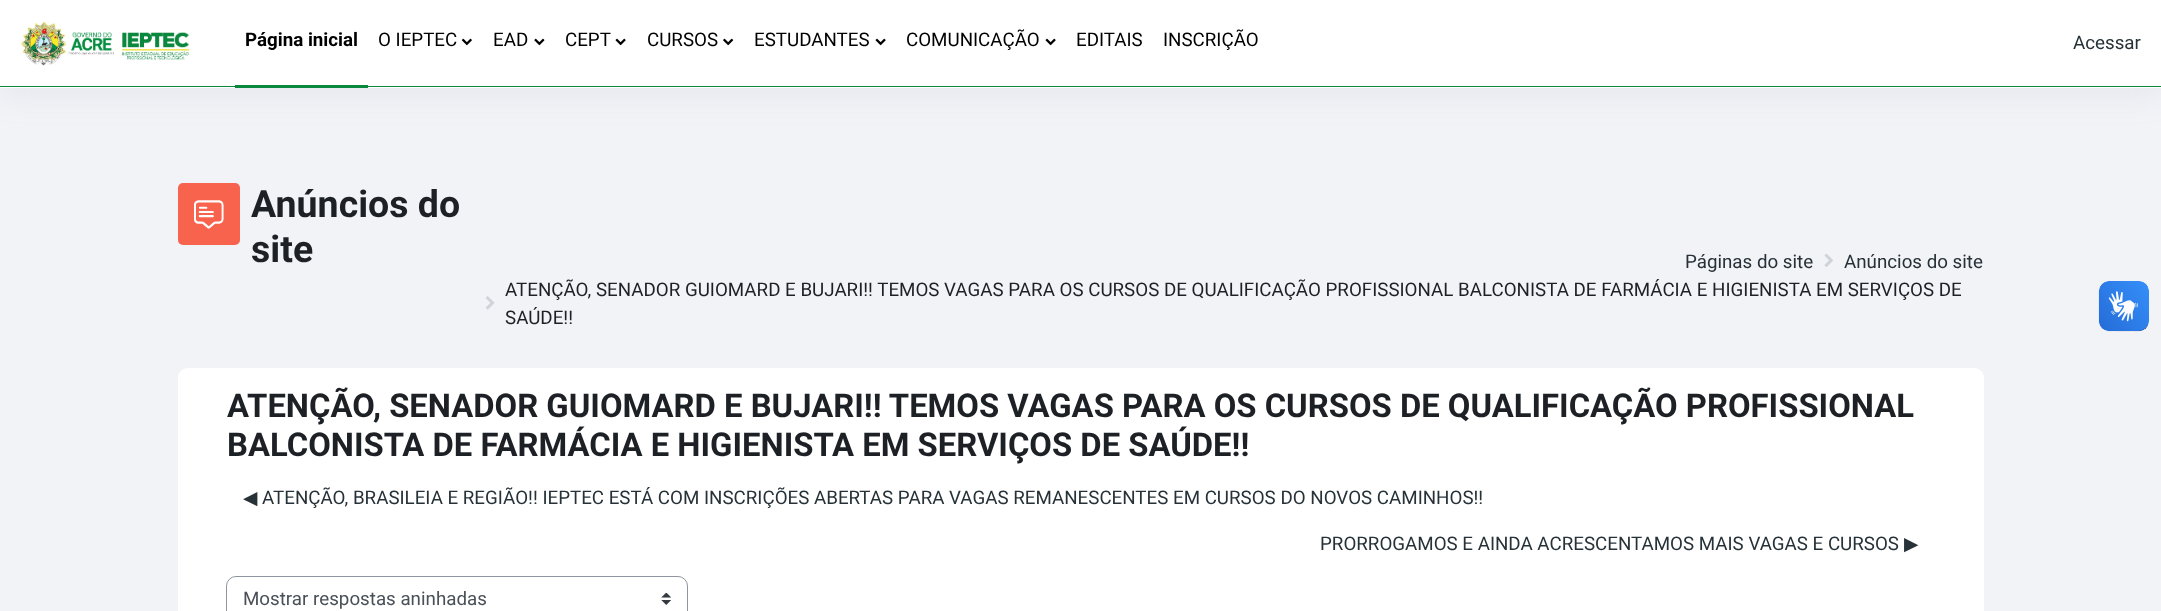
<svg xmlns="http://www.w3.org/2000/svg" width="2161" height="611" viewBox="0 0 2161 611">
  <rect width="100%" height="100%" fill="rgb(242,243,247)"/>
  <rect x="0" y="8" width="2161" height="87" fill="rgba(140,152,164,0.13)" filter="blur(15px)"/>
  <rect x="0" y="0" width="2161" height="88" fill="rgb(255,255,255)"/>
  <rect x="0" y="86" width="2161" height="1" fill="rgb(12,135,62)"/>
  <image x="20" y="21" width="170" height="45" href="pic1.png"/>
  <rect x="235" y="85" width="133" height="3" fill="rgb(12,135,62)"/>
  <text x="245" y="46" font-family="Roboto" font-size="18.75" font-weight="bold" fill="rgb(0,0,0)">Página inicial</text>
  <text x="378" y="46" font-family="Roboto" font-size="18.75" fill="rgb(0,0,0)">O IEPTEC</text>
  <image x="461" y="38" width="11" height="8" href="pic2.png"/>
  <text x="493" y="46" font-family="Roboto" font-size="18.75" fill="rgb(0,0,0)">EAD</text>
  <image x="534" y="38" width="11" height="8" href="pic3.png"/>
  <text x="565" y="46" font-family="Roboto" font-size="18.75" fill="rgb(0,0,0)">CEPT</text>
  <image x="615" y="38" width="11" height="8" href="pic4.png"/>
  <text x="647" y="46" font-family="Roboto" font-size="18.75" fill="rgb(0,0,0)">CURSOS</text>
  <image x="723" y="38" width="11" height="8" href="pic5.png"/>
  <text x="754" y="46" font-family="Roboto" font-size="18.75" fill="rgb(0,0,0)">ESTUDANTES</text>
  <image x="875" y="38" width="11" height="8" href="pic4.png"/>
  <text x="906" y="46" font-family="Roboto" font-size="18.75" fill="rgb(0,0,0)">COMUNICAÇÃO</text>
  <image x="1045" y="38" width="11" height="8" href="pic4.png"/>
  <g font-family="Roboto" font-size="18.75" fill="rgb(0,0,0)">
    <text x="1076" y="46">EDITAIS</text>
    <text x="1163" y="46">INSCRIÇÃO</text>
  </g>
  <text x="2073" y="49" font-family="Roboto" font-size="18.75" fill="rgb(38,50,56)">Acessar</text>
  <rect x="178" y="183" width="62" height="62" rx="5" fill="rgb(247,99,77)"/>
  <image x="194" y="200" width="30" height="29" href="pic6.png"/>
  <g font-family="Roboto" font-size="37.5" font-weight="bold" fill="rgb(29,33,37)">
    <text>
      <tspan x="251" y="217">Anúncios do</tspan>
      <tspan x="251" y="262">site</tspan>
    </text>
  </g>
  <text x="1685" y="268" font-family="Roboto" font-size="18.75" fill="rgb(38,50,56)">Páginas do site</text>
  <image x="1824" y="253" width="9" height="14" href="pic7.png"/>
  <text x="1844" y="268" font-family="Roboto" font-size="18.75" fill="rgb(38,50,56)">Anúncios do site</text>
  <text x="505" y="296" font-family="Roboto" font-size="18.75" fill="rgb(29,33,37)">ATENÇÃO, SENADOR GUIOMARD E BUJARI!! TEMOS VAGAS PARA OS CURSOS DE QUALIFICAÇÃO PROFISSIONAL BALCONISTA DE FARMÁCIA E HIGIENISTA EM SERVIÇOS DE</text>
  <image x="485" y="296" width="10" height="14" href="pic8.png"/>
  <text x="505" y="324" font-family="Roboto" font-size="18.75" fill="rgb(29,33,37)">SAÚDE!!</text>
  <path d="M188 368H1974C1979.5 368 1984 372.5 1984 378V611H178V378C178 372.5 182.5 368 188 368Z" fill="rgb(255,255,255)"/>
  <g font-family="Roboto" font-size="32.8" font-weight="bold" fill="rgb(29,33,37)">
    <text>
      <tspan x="227" y="417">ATENÇÃO, SENADOR GUIOMARD E BUJARI!! TEMOS VAGAS PARA OS CURSOS DE QUALIFICAÇÃO PROFISSIONAL</tspan>
      <tspan x="227" y="456">BALCONISTA DE FARMÁCIA E HIGIENISTA EM SERVIÇOS DE SAÚDE!!</tspan>
    </text>
  </g>
  <text x="243" y="504" font-family="DejaVu Sans" font-size="18.75" fill="rgb(38,50,56)">◀︎</text>
  <g font-family="Roboto" font-size="18.75" fill="rgb(38,50,56)">
    <text x="262" y="504">ATENÇÃO, BRASILEIA E REGIÃO!! IEPTEC ESTÁ COM INSCRIÇÕES ABERTAS PARA VAGAS REMANESCENTES EM CURSOS DO NOVOS CAMINHOS!!</text>
    <text x="1320" y="550">PRORROGAMOS E AINDA ACRESCENTAMOS MAIS VAGAS E CURSOS</text>
  </g>
  <text x="1904" y="550" font-family="DejaVu Sans" font-size="18.75" fill="rgb(38,50,56)">▶︎</text>
  <image x="661" y="593" width="10" height="12" href="pic9.png"/>
  <rect x="226.5" y="576.5" width="461" height="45" rx="9.5" fill="none" stroke="rgb(143,149,158)"/>
  <text x="243" y="605" font-family="Roboto" font-size="18.75" fill="rgb(73,80,87)">Mostrar respostas aninhadas</text>
  <image x="2098" y="281" width="51" height="51" href="pic10.png"/>
  <image x="2099" y="281" width="50" height="50" href="pic11.png"/>
</svg>
